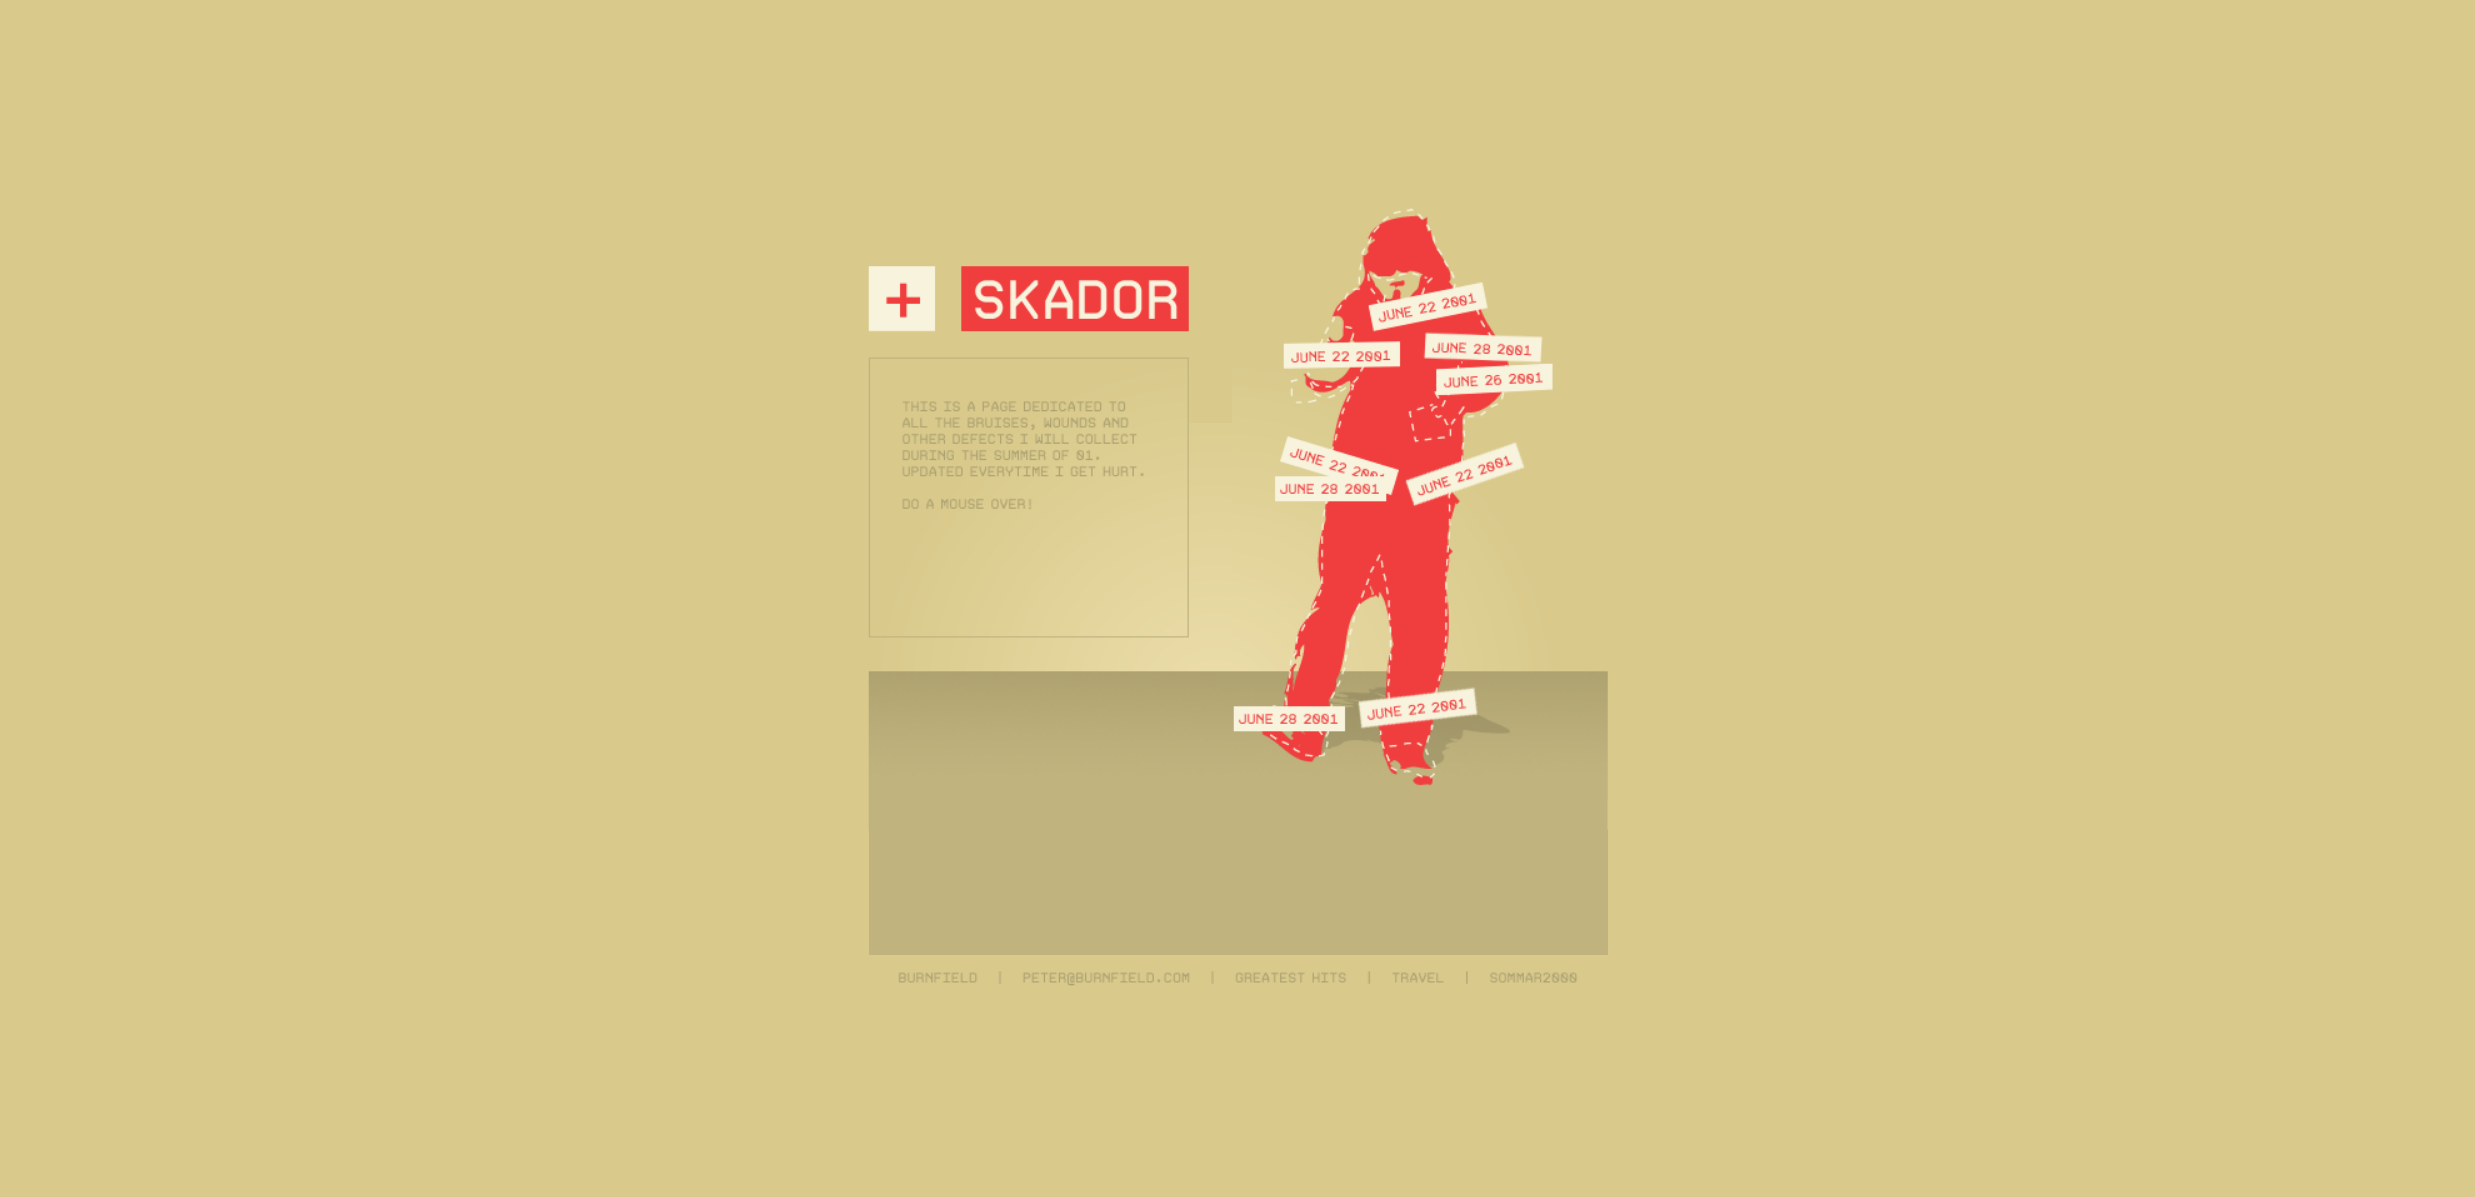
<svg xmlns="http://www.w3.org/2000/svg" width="2475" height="1197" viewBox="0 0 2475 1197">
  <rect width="100%" height="100%" fill="rgb(217,202,140)"/>
  <image x="868" y="423" width="740" height="407" href="pic1.png"/>
  <image x="868" y="266" width="321" height="66" href="pic2.png"/>
  <image x="868" y="357" width="321" height="281" href="pic3.png"/>
  <image x="1232" y="208" width="376" height="592" href="pic4.png"/>
  <rect x="869" y="830" width="739" height="125" fill="rgb(192,179,126)"/>
  <image x="898" y="971" width="680" height="15" href="pic5.png"/>
</svg>
